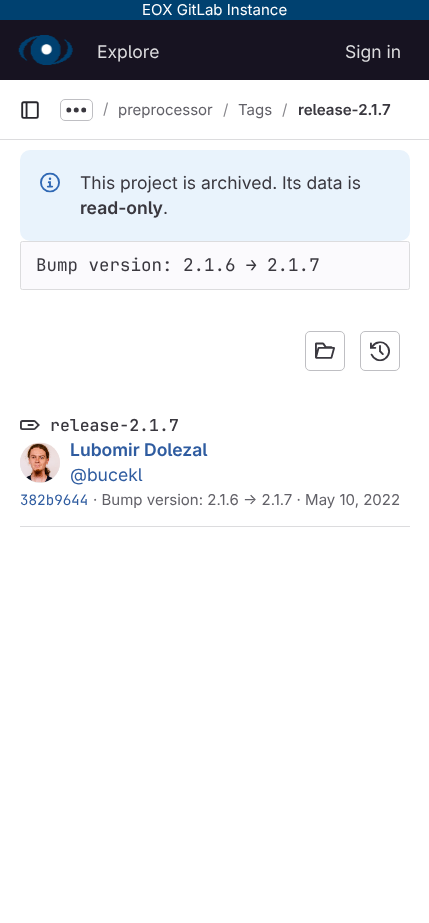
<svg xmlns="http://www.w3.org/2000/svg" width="429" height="923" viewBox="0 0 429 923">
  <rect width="100%" height="100%" fill="rgb(255,255,255)"/>
  <rect x="0" y="0" width="429" height="20" fill="rgb(0,65,112)"/>
  <text x="142" y="15" font-family="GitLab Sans" font-size="15" fill="rgb(255,255,255)">EOX GitLab Instance</text>
  <rect x="0" y="20" width="429" height="60" fill="rgb(23,19,33)"/>
  <image x="18" y="35" width="55" height="30" href="pic1.png"/>
  <g font-family="GitLab Sans" font-size="17.5" fill="rgb(220,220,222)">
    <text x="97" y="58">Explore</text>
    <text x="345" y="58">Sign in</text>
  </g>
  <rect x="0" y="139" width="429" height="1" fill="rgb(220,220,222)"/>
  <image x="21" y="101" width="18" height="18" href="pic2.png"/>
  <rect x="60.5" y="99.5" width="32" height="21" rx="4.5" fill="none" stroke="rgb(191,191,195)"/>
  <image x="66" y="107" width="21" height="6" href="pic3.png"/>
  <text x="103" y="114" font-family="GitLab Sans" font-size="15" fill="rgb(137,136,141)">/</text>
  <text x="118" y="115" font-family="GitLab Sans" font-size="15" fill="rgb(98,97,104)">preprocessor</text>
  <text x="223" y="115" font-family="GitLab Sans" font-size="15" fill="rgb(137,136,141)">/</text>
  <text x="238" y="115" font-family="GitLab Sans" font-size="15" fill="rgb(98,97,104)">Tags</text>
  <text x="282" y="115" font-family="GitLab Sans" font-size="15" fill="rgb(137,136,141)">/</text>
  <text x="298" y="115" font-family="GitLab Sans" font-size="15" font-weight="600" fill="rgb(58,56,63)">release-2.1.7</text>
  <rect x="20" y="150" width="390" height="91" rx="10" fill="rgb(233,243,252)"/>
  <image x="40" y="172" width="20" height="21" href="pic4.png"/>
  <text x="80" y="189" font-family="GitLab Sans" font-size="17.5" fill="rgb(58,56,63)">This project is archived. Its data is</text>
  <text x="80" y="214" font-family="GitLab Sans" font-size="17.5" font-weight="600" fill="rgb(58,56,63)">read-only</text>
  <text x="163" y="214" font-family="GitLab Sans" font-size="17.5" fill="rgb(58,56,63)">.</text>
  <rect x="20" y="526" width="390" height="1" fill="rgb(220,220,222)"/>
  <rect x="20.5" y="241.5" width="389" height="48" rx="2" fill="rgb(251,250,253)" stroke="rgb(220,220,222)"/>
  <text x="36" y="271" font-family="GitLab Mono" font-size="17.5" fill="rgb(58,56,63)">Bump version: 2.1.6 → 2.1.7</text>
  <rect x="305.5" y="331.5" width="39" height="39" rx="4.5" fill="none" stroke="rgb(191,191,195)"/>
  <image x="315" y="342" width="20" height="17" href="pic5.png"/>
  <rect x="360.5" y="331.5" width="39" height="39" rx="4.5" fill="none" stroke="rgb(191,191,195)"/>
  <image x="370" y="341" width="20" height="21" href="pic6.png"/>
  <image x="20" y="420" width="20" height="10" href="pic7.png"/>
  <text x="50" y="431" font-family="GitLab Mono" font-size="16.5" font-weight="600" fill="rgb(58,56,63)">release-2.1.7</text>
  <circle cx="40" cy="463" r="19.5" fill="none" stroke="rgb(232,231,233)"/>
  <image x="20" y="442" width="40" height="41" href="pic8.png"/>
  <text x="70" y="456" font-family="GitLab Sans" font-size="17.5" font-weight="600" fill="rgb(47,92,160)">Lubomir Dolezal</text>
  <text x="70" y="481" font-family="GitLab Sans" font-size="17.5" fill="rgb(47,92,160)">@bucekl</text>
  <text x="20" y="505" font-family="GitLab Mono" font-size="14.25" fill="rgb(47,92,160)">382b9644</text>
  <text x="93" y="505" font-family="GitLab Sans" font-size="15" fill="rgb(98,97,104)">· Bump version: 2.1.6 → 2.1.7 · May 10, 2022</text>
</svg>
